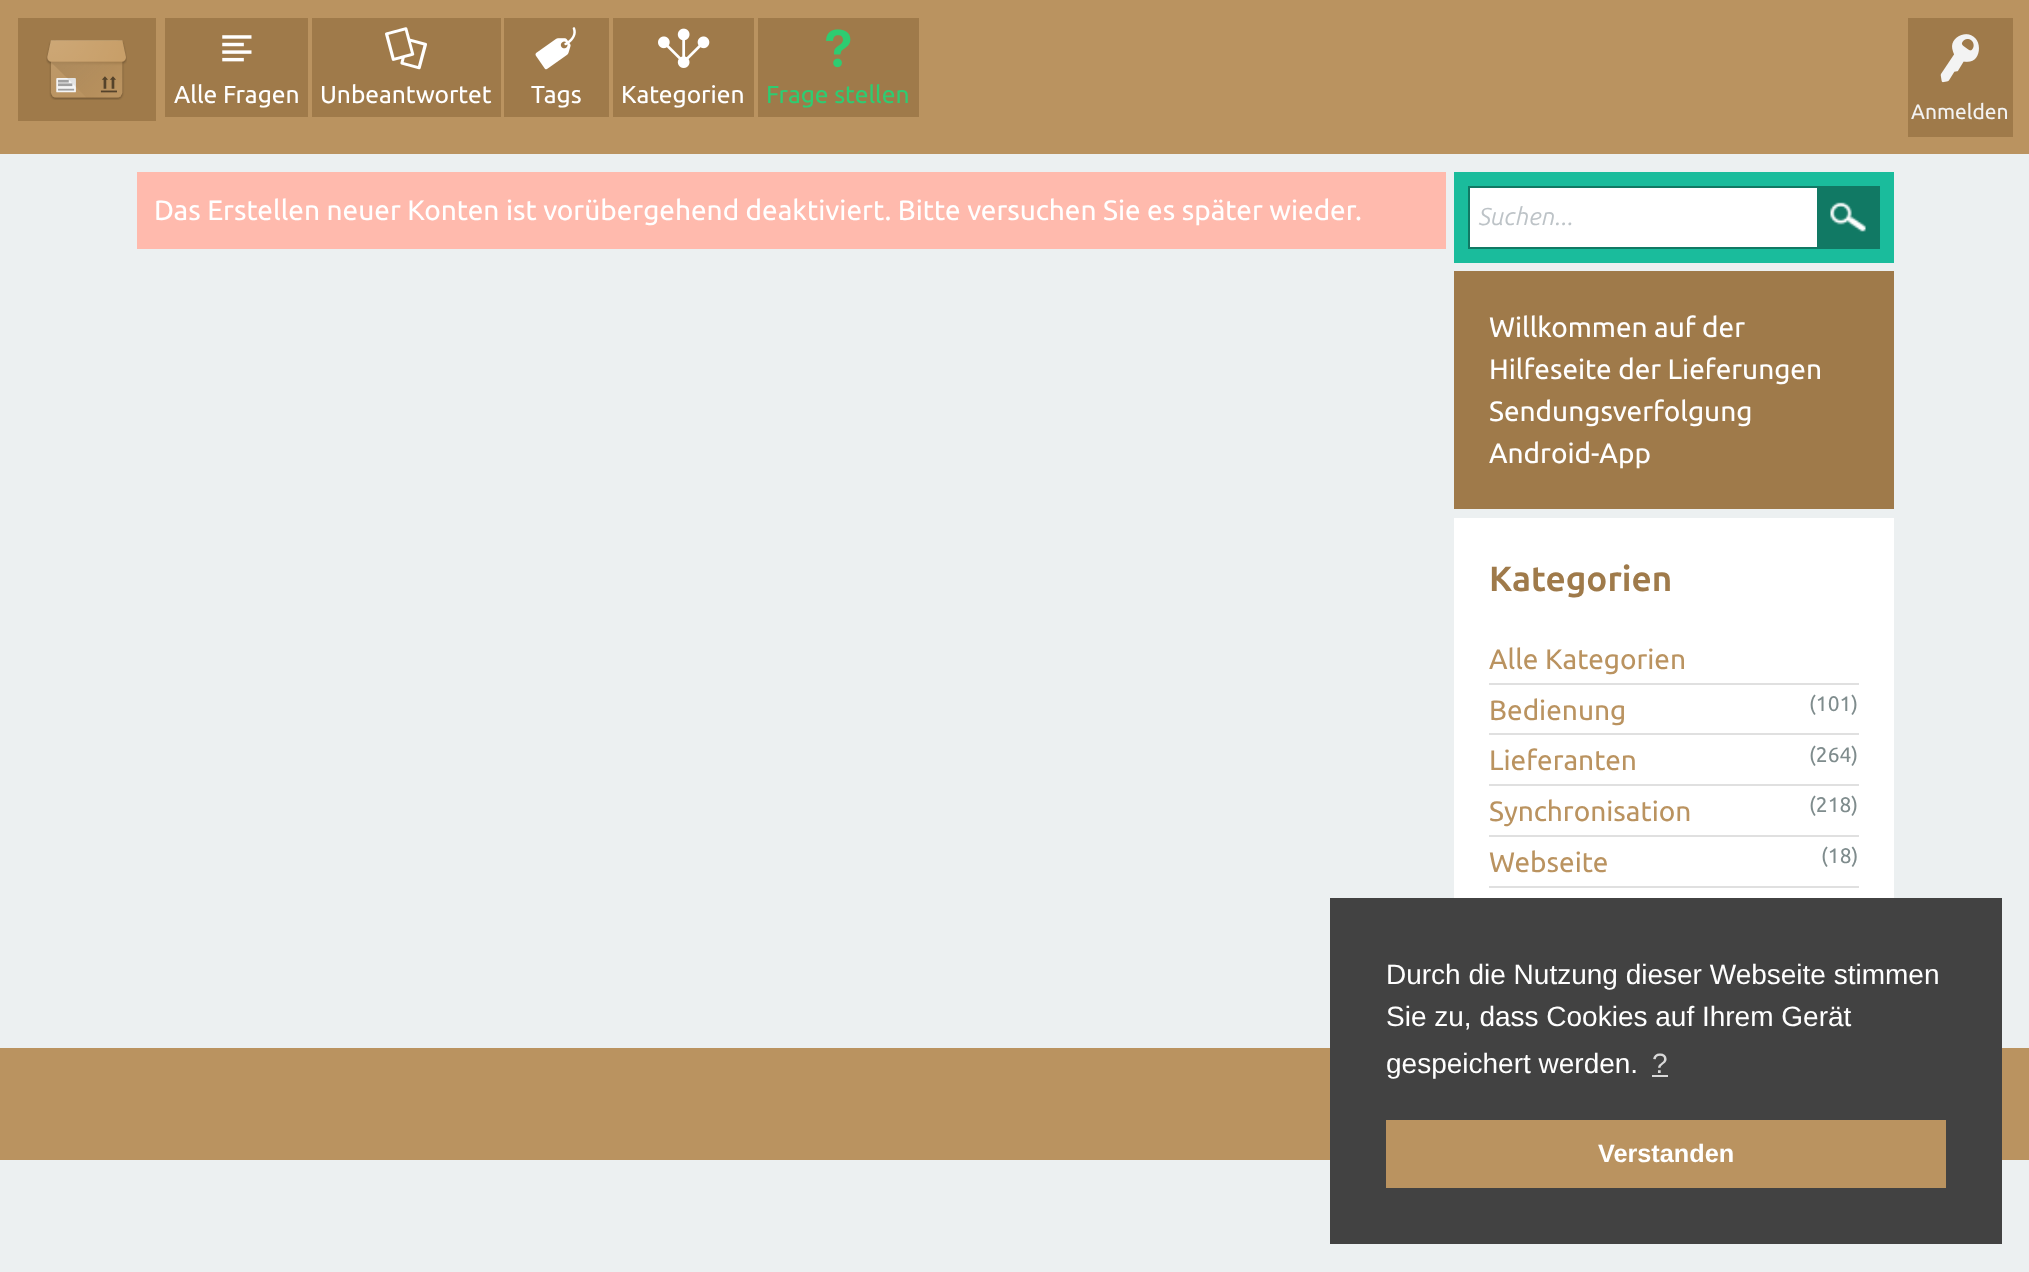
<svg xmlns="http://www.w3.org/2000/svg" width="2029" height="1272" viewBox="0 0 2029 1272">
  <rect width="100%" height="100%" fill="rgb(236,240,241)"/>
  <rect x="0" y="0" width="2029" height="154" fill="rgb(186,147,96)"/>
  <rect x="18" y="18" width="138" height="103" fill="rgb(159,122,74)"/>
  <image x="46" y="40" width="81" height="60" href="pic1.png"/>
  <rect x="165" y="18" width="143" height="99" fill="rgb(159,122,74)"/>
  <image x="222" y="35" width="30" height="27" href="pic2.png"/>
  <text x="174" y="103" font-family="Ubuntu" font-size="24.5" fill="rgb(255,255,255)">Alle Fragen</text>
  <rect x="312" y="18" width="189" height="99" fill="rgb(159,122,74)"/>
  <image x="385" y="27" width="42" height="43" href="pic3.png"/>
  <text x="320" y="103" font-family="Ubuntu" font-size="24.5" fill="rgb(255,255,255)">Unbeantwortet</text>
  <rect x="504" y="18" width="105" height="99" fill="rgb(159,122,74)"/>
  <image x="535" y="27" width="41" height="43" href="pic4.png"/>
  <text x="531" y="103" font-family="Ubuntu" font-size="24.5" fill="rgb(255,255,255)">Tags</text>
  <rect x="613" y="18" width="141" height="99" fill="rgb(159,122,74)"/>
  <image x="658" y="28" width="52" height="40" href="pic5.png"/>
  <text x="621" y="103" font-family="Ubuntu" font-size="24.5" fill="rgb(255,255,255)">Kategorien</text>
  <rect x="758" y="18" width="161" height="99" fill="rgb(159,122,74)"/>
  <image x="826" y="29" width="25" height="39" href="pic6.png"/>
  <text x="766" y="103" font-family="Ubuntu" font-size="24.5" fill="rgb(46,204,113)">Frage stellen</text>
  <rect x="1908" y="18" width="105" height="119" fill="rgb(159,122,74)"/>
  <image x="1940" y="34" width="39" height="49" href="pic7.png"/>
  <text x="1911" y="119" font-family="Ubuntu" font-size="21" fill="rgb(243,243,243)">Anmelden</text>
  <rect x="137" y="172" width="1309" height="77" fill="rgb(255,186,173)"/>
  <text x="154" y="220" font-family="Ubuntu" font-size="28" fill="rgb(255,255,255)">Das Erstellen neuer Konten ist vorübergehend deaktiviert. Bitte versuchen Sie es später wieder.</text>
  <rect x="1454" y="172" width="440" height="91" fill="rgb(26,188,156)"/>
  <rect x="1470" y="188" width="347" height="59" fill="rgb(255,255,255)"/>
  <rect x="1469" y="187" width="410" height="61" fill="none" stroke="rgb(17,121,100)" stroke-width="2"/>
  <text x="1479" y="225" font-family="Ubuntu" font-size="24.5" font-style="italic" fill="rgb(189,195,199)">Suchen...</text>
  <rect x="1817" y="188" width="61" height="59" fill="rgb(17,121,100)"/>
  <image x="1830" y="202" width="36" height="30" href="pic8.png"/>
  <rect x="1454" y="271" width="440" height="238" fill="rgb(159,122,74)"/>
  <g font-family="Ubuntu" font-size="28" fill="rgb(255,255,255)">
    <text>
      <tspan x="1489" y="337">Willkommen auf der</tspan>
      <tspan x="1489" y="379">Hilfeseite der Lieferungen</tspan>
      <tspan x="1489" y="421">Sendungsverfolgung</tspan>
      <tspan x="1489" y="463">Android-App</tspan>
    </text>
  </g>
  <rect x="1454" y="518" width="440" height="380" fill="rgb(255,255,255)"/>
  <text x="1489" y="591" font-family="Ubuntu" font-size="35" font-weight="bold" fill="rgb(159,122,74)">Kategorien</text>
  <rect x="1489" y="683" width="370" height="2" fill="rgb(224,224,224)"/>
  <text x="1489" y="669" font-family="Ubuntu" font-size="28" fill="rgb(186,147,96)">Alle Kategorien</text>
  <rect x="1489" y="733" width="370" height="2" fill="rgb(224,224,224)"/>
  <text x="1489" y="720" font-family="Ubuntu" font-size="28" fill="rgb(186,147,96)">Bedienung</text>
  <text x="1809" y="711" font-family="Ubuntu" font-size="21" fill="rgb(127,140,141)">(101)</text>
  <rect x="1489" y="784" width="370" height="2" fill="rgb(224,224,224)"/>
  <text x="1489" y="770" font-family="Ubuntu" font-size="28" fill="rgb(186,147,96)">Lieferanten</text>
  <text x="1809" y="762" font-family="Ubuntu" font-size="21" fill="rgb(127,140,141)">(264)</text>
  <rect x="1489" y="835" width="370" height="2" fill="rgb(224,224,224)"/>
  <text x="1489" y="821" font-family="Ubuntu" font-size="28" fill="rgb(186,147,96)">Synchronisation</text>
  <text x="1809" y="812" font-family="Ubuntu" font-size="21" fill="rgb(127,140,141)">(218)</text>
  <rect x="1489" y="886" width="370" height="2" fill="rgb(224,224,224)"/>
  <text x="1489" y="872" font-family="Ubuntu" font-size="28" fill="rgb(186,147,96)">Webseite</text>
  <text x="1821" y="863" font-family="Ubuntu" font-size="21" fill="rgb(127,140,141)">(18)</text>
  <rect x="0" y="1048" width="2029" height="112" fill="rgb(186,147,96)"/>
  <rect x="1330" y="898" width="672" height="346" fill="rgb(66,66,66)"/>
  <g font-family="Liberation Sans" font-size="28" fill="rgb(255,255,255)">
    <text>
      <tspan x="1386" y="984">Durch die Nutzung dieser Webseite stimmen</tspan>
      <tspan x="1386" y="1026">Sie zu, dass Cookies auf Ihrem Gerät</tspan>
      <tspan x="1386" y="1073">gespeichert werden.</tspan>
    </text>
  </g>
  <text x="1652" y="1073" font-family="Liberation Sans" font-size="28" fill="rgb(217,217,217)">?</text>
  <rect x="1652" y="1075" width="16" height="2" fill="rgb(217,217,217)"/>
  <rect x="1386" y="1120" width="560" height="68" fill="rgb(186,147,96)"/>
  <text x="1598" y="1162" font-family="Liberation Sans" font-size="25.25" font-weight="bold" fill="rgb(255,255,255)">Verstanden</text>
</svg>
